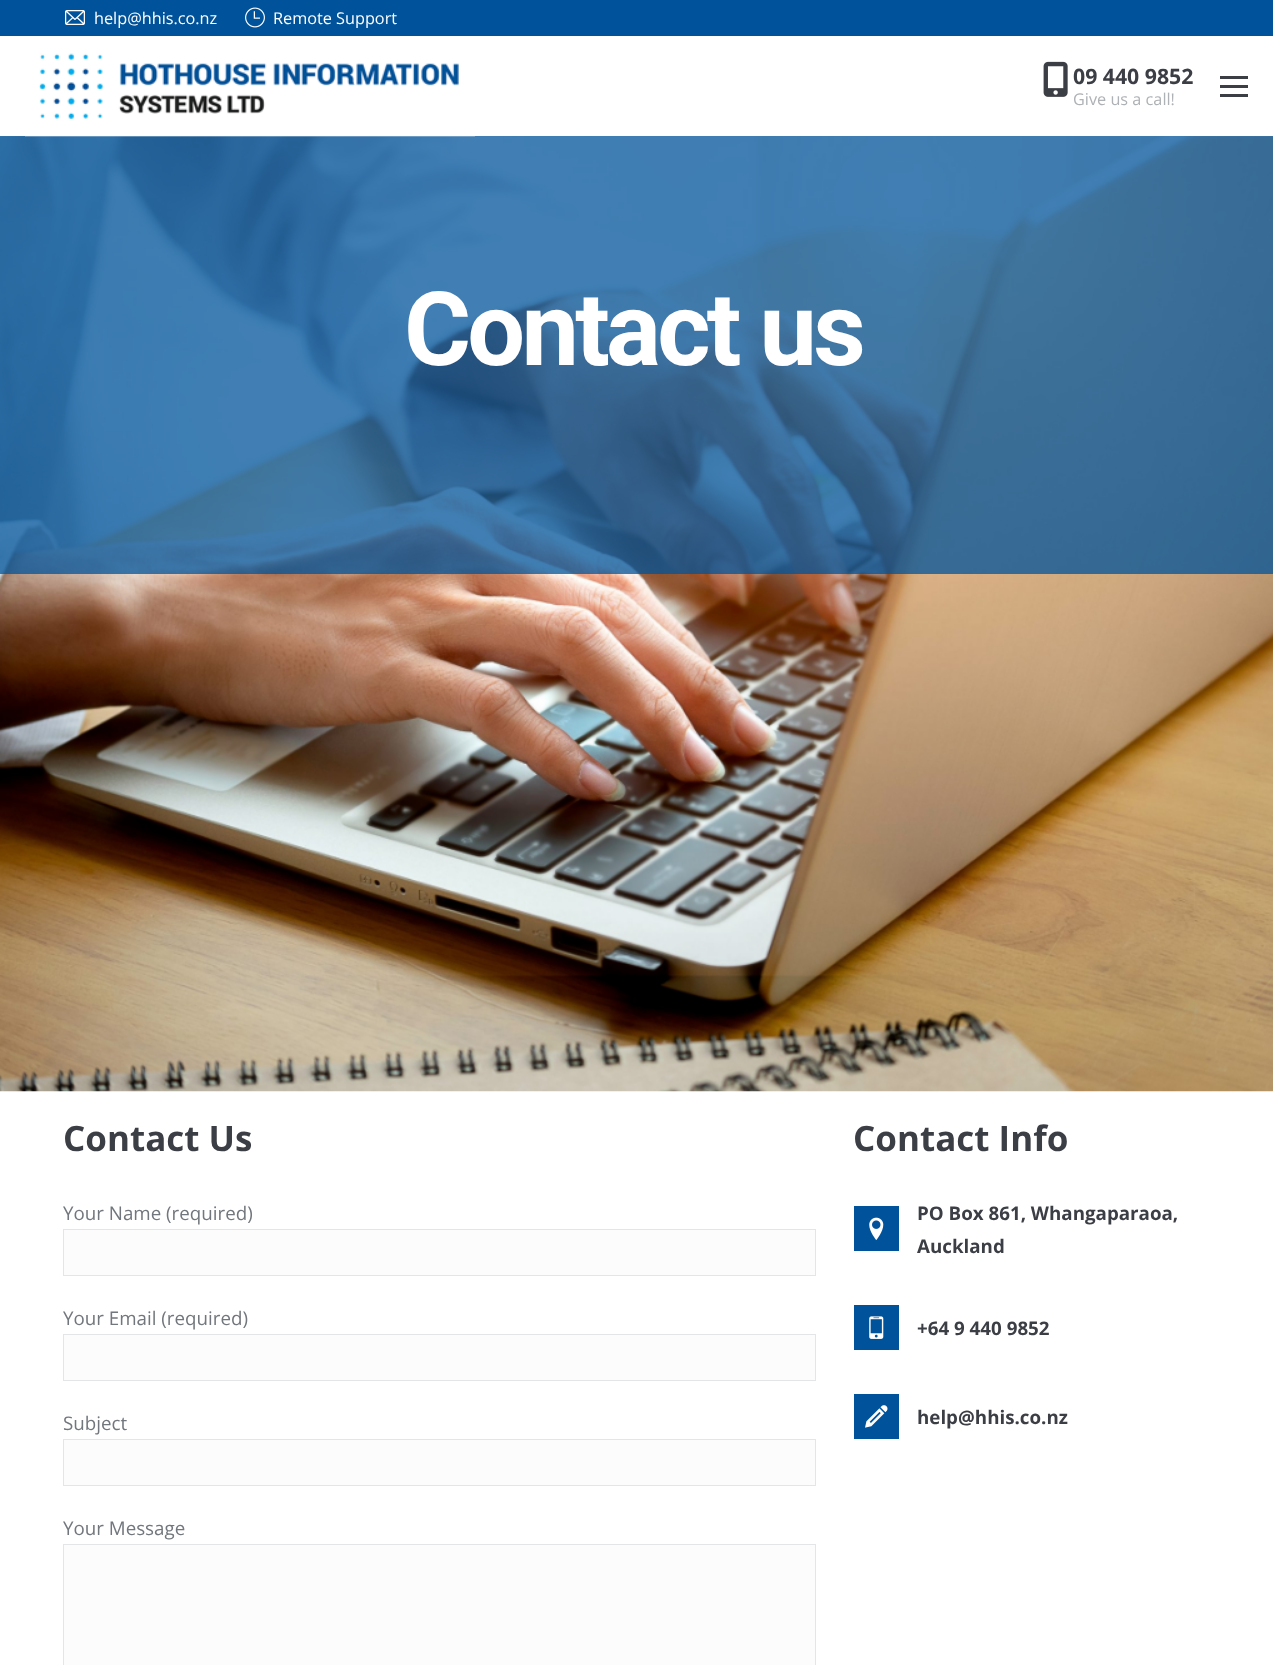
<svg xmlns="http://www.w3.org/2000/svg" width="1273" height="1665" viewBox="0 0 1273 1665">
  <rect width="100%" height="100%" fill="rgb(255,255,255)"/>
  <rect x="0" y="0" width="1273" height="36" fill="rgb(0,83,154)"/>
  <image x="65" y="10" width="20" height="15" href="pic1.png"/>
  <text x="94" y="24" font-family="Open Sans" font-size="16.25" fill="rgb(255,255,255)">help@hhis.co.nz</text>
  <image x="245" y="7" width="20" height="21" href="pic2.png"/>
  <text x="273" y="24" font-family="Open Sans" font-size="16.25" fill="rgb(255,255,255)">Remote Support</text>
  <image x="0" y="136" width="1273" height="956" href="pic5.png"/>
  <rect x="0" y="136" width="1273" height="438" fill="rgba(0,83,154,0.75)"/>
  <image x="25" y="53" width="450" height="84" href="pic3.png"/>
  <image x="1043" y="61" width="25" height="36" href="pic4.png"/>
  <text x="1073" y="84" font-family="Open Sans" font-size="21.25" font-weight="bold" fill="rgb(60,62,69)">09 440 9852</text>
  <text x="1073" y="105" font-family="Open Sans" font-size="16.25" fill="rgb(174,178,181)">Give us a call!</text>
  <rect x="1220" y="76" width="28" height="3" fill="rgb(60,62,69)"/>
  <rect x="1220" y="85" width="28" height="3" fill="rgb(60,62,69)"/>
  <rect x="1220" y="94" width="28" height="3" fill="rgb(60,62,69)"/>
  <text x="404" y="365" font-family="Roboto" font-size="102.5" font-weight="bold" letter-spacing="-3.75" fill="rgb(255,255,255)">Contact us</text>
  <text x="63" y="1151" font-family="Open Sans" font-size="35" font-weight="bold" fill="rgb(60,62,69)">Contact Us</text>
  <text x="63" y="1220" font-family="Open Sans" font-size="18.75" fill="rgb(114,119,125)">Your Name (required)</text>
  <rect x="63.5" y="1229.5" width="752" height="46" fill="rgb(252,252,252)" stroke="rgb(228,229,231)"/>
  <text x="63" y="1325" font-family="Open Sans" font-size="18.75" fill="rgb(114,119,125)">Your Email (required)</text>
  <rect x="63.5" y="1334.5" width="752" height="46" fill="rgb(252,252,252)" stroke="rgb(228,229,231)"/>
  <text x="63" y="1430" font-family="Open Sans" font-size="18.75" fill="rgb(114,119,125)">Subject</text>
  <rect x="63.5" y="1439.5" width="752" height="46" fill="rgb(252,252,252)" stroke="rgb(228,229,231)"/>
  <text x="63" y="1535" font-family="Open Sans" font-size="18.75" fill="rgb(114,119,125)">Your Message</text>
  <rect x="63.5" y="1544.5" width="752" height="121" fill="rgb(252,252,252)" stroke="rgb(228,229,231)"/>
  <text x="853" y="1151" font-family="Open Sans" font-size="35" font-weight="bold" fill="rgb(60,62,69)">Contact Info</text>
  <rect x="854" y="1206" width="45" height="45" fill="rgb(0,83,154)"/>
  <image x="869" y="1217" width="15" height="23" href="pic6.png"/>
  <g font-family="Open Sans" font-size="18.75" font-weight="bold" fill="rgb(60,62,69)">
    <text>
      <tspan x="917" y="1220">PO Box 861, Whangaparaoa,</tspan>
      <tspan x="917" y="1253">Auckland</tspan>
    </text>
  </g>
  <rect x="854" y="1305" width="45" height="45" fill="rgb(0,83,154)"/>
  <image x="869" y="1316" width="15" height="23" href="pic7.png"/>
  <text x="917" y="1335" font-family="Open Sans" font-size="18.75" font-weight="bold" fill="rgb(60,62,69)">+64 9 440 9852</text>
  <rect x="854" y="1394" width="45" height="45" fill="rgb(0,83,154)"/>
  <image x="865" y="1405" width="23" height="23" href="pic8.png"/>
  <text x="917" y="1424" font-family="Open Sans" font-size="18.75" font-weight="bold" fill="rgb(60,62,69)">help@hhis.co.nz</text>
</svg>
